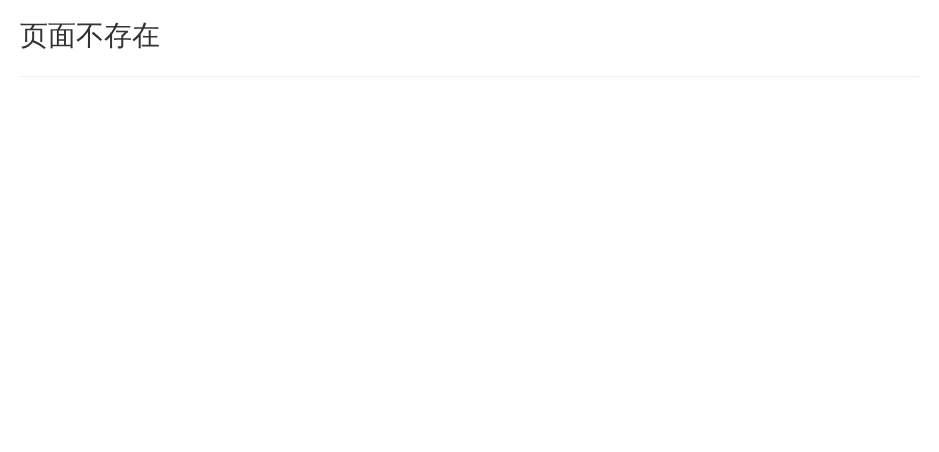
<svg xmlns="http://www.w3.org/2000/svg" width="939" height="452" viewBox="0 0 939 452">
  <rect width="100%" height="100%" fill="rgb(255,255,255)"/>
  <text x="20" y="45" font-family="WenQuanYi Zen Hei" font-size="28" font-weight="500" fill="rgb(51,51,51)">页面不存在</text>
  <rect x="20" y="76" width="899" height="1" fill="rgb(238,238,238)"/>
</svg>
